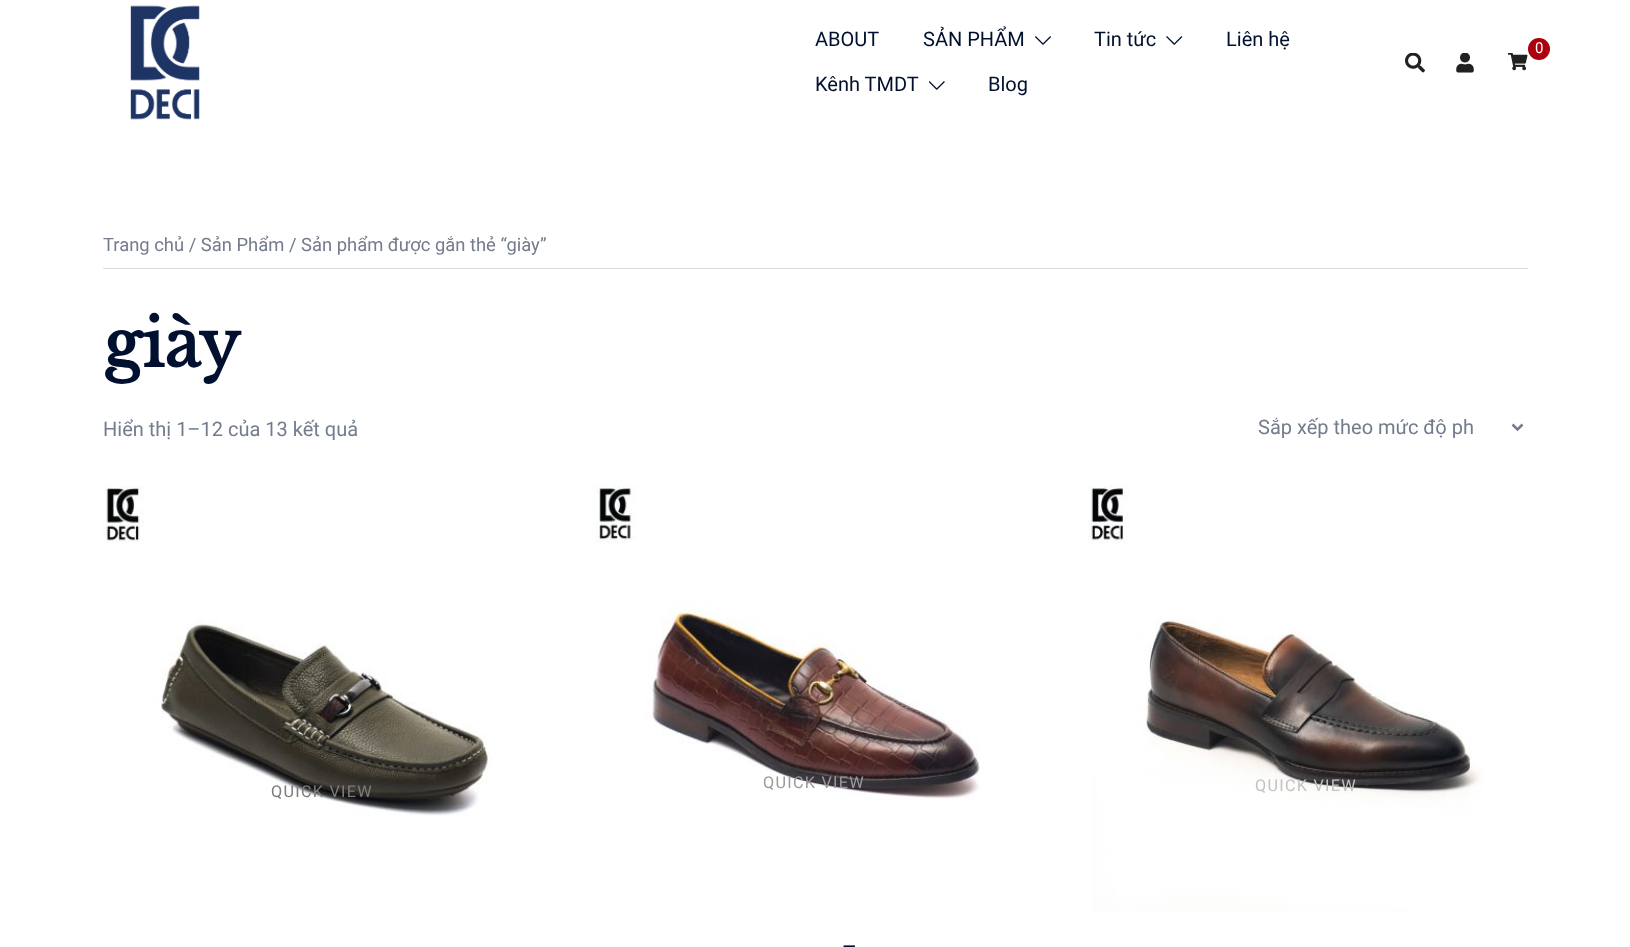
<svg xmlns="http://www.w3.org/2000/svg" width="1630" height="947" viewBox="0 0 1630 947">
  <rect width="100%" height="100%" fill="rgb(255,255,255)"/>
  <image x="130" y="5" width="70" height="115" href="pic1.png"/>
  <g font-family="Roboto" font-size="20" fill="rgb(0,16,46)">
    <text x="815" y="46">ABOUT</text>
    <text x="923" y="46">SẢN PHẨM</text>
  </g>
  <image x="1035" y="36" width="16" height="9" href="pic2.png"/>
  <text x="1094" y="46" font-family="Roboto" font-size="20" fill="rgb(0,16,46)">Tin tức</text>
  <image x="1166" y="36" width="17" height="9" href="pic3.png"/>
  <g font-family="Roboto" font-size="20" fill="rgb(0,16,46)">
    <text x="1226" y="46">Liên hệ</text>
    <text x="815" y="91">Kênh TMDT</text>
  </g>
  <image x="929" y="81" width="16" height="9" href="pic4.png"/>
  <text x="988" y="91" font-family="Roboto" font-size="20" fill="rgb(0,16,46)">Blog</text>
  <circle cx="1539" cy="49" r="11" fill="rgb(171,0,13)"/>
  <text x="1535" y="53" font-family="Roboto" font-size="15" fill="rgb(255,255,255)">0</text>
  <image x="1508" y="53" width="20" height="18" href="pic5.png"/>
  <image x="1456" y="53" width="18" height="20" href="pic6.png"/>
  <image x="1405" y="53" width="20" height="20" href="pic7.png"/>
  <rect x="103" y="268" width="1425" height="1" fill="rgb(219,219,219)"/>
  <text x="103" y="251" font-family="Roboto" font-size="18.4" fill="rgb(115,124,140)">Trang chủ / Sản Phẩm / Sản phẩm được gắn thẻ “giày”</text>
  <text x="103" y="367" font-family="Libre Baskerville" font-size="65" font-weight="bold" fill="rgb(0,16,46)">giày</text>
  <text x="103" y="436" font-family="Roboto" font-size="20" fill="rgb(115,124,140)">Hiển thị 1–12 của 13 kết quả</text>
  <path d="M1512.5 424.5L1517.5 429.5L1522.5 424.5" fill="none" stroke="rgb(115,124,140)" stroke-width="2.5"/>
  <text x="1258" y="434" font-family="Roboto" font-size="20" fill="rgb(115,124,140)">Sắp xếp theo mức độ ph</text>
  <image x="103" y="485" width="390" height="333" href="pic8.png"/>
  <text x="271" y="797" font-family="Roboto" font-size="16.25" letter-spacing="1.25" fill="rgb(125,124,123)">QUICK VIEW</text>
  <image x="595" y="485" width="385" height="317" href="pic9.png"/>
  <text x="763" y="788" font-family="Roboto" font-size="16.25" letter-spacing="1.25" fill="rgb(155,153,156)">QUICK VIEW</text>
  <text x="842" y="952" font-family="Libre Baskerville" font-size="20" fill="rgb(0,16,46)">–</text>
  <image x="1088" y="485" width="396" height="427" href="pic10.png"/>
  <text x="1255" y="791" font-family="Roboto" font-size="16.25" letter-spacing="1.25" fill="rgb(194,194,193)">QUICK VIEW</text>
</svg>
